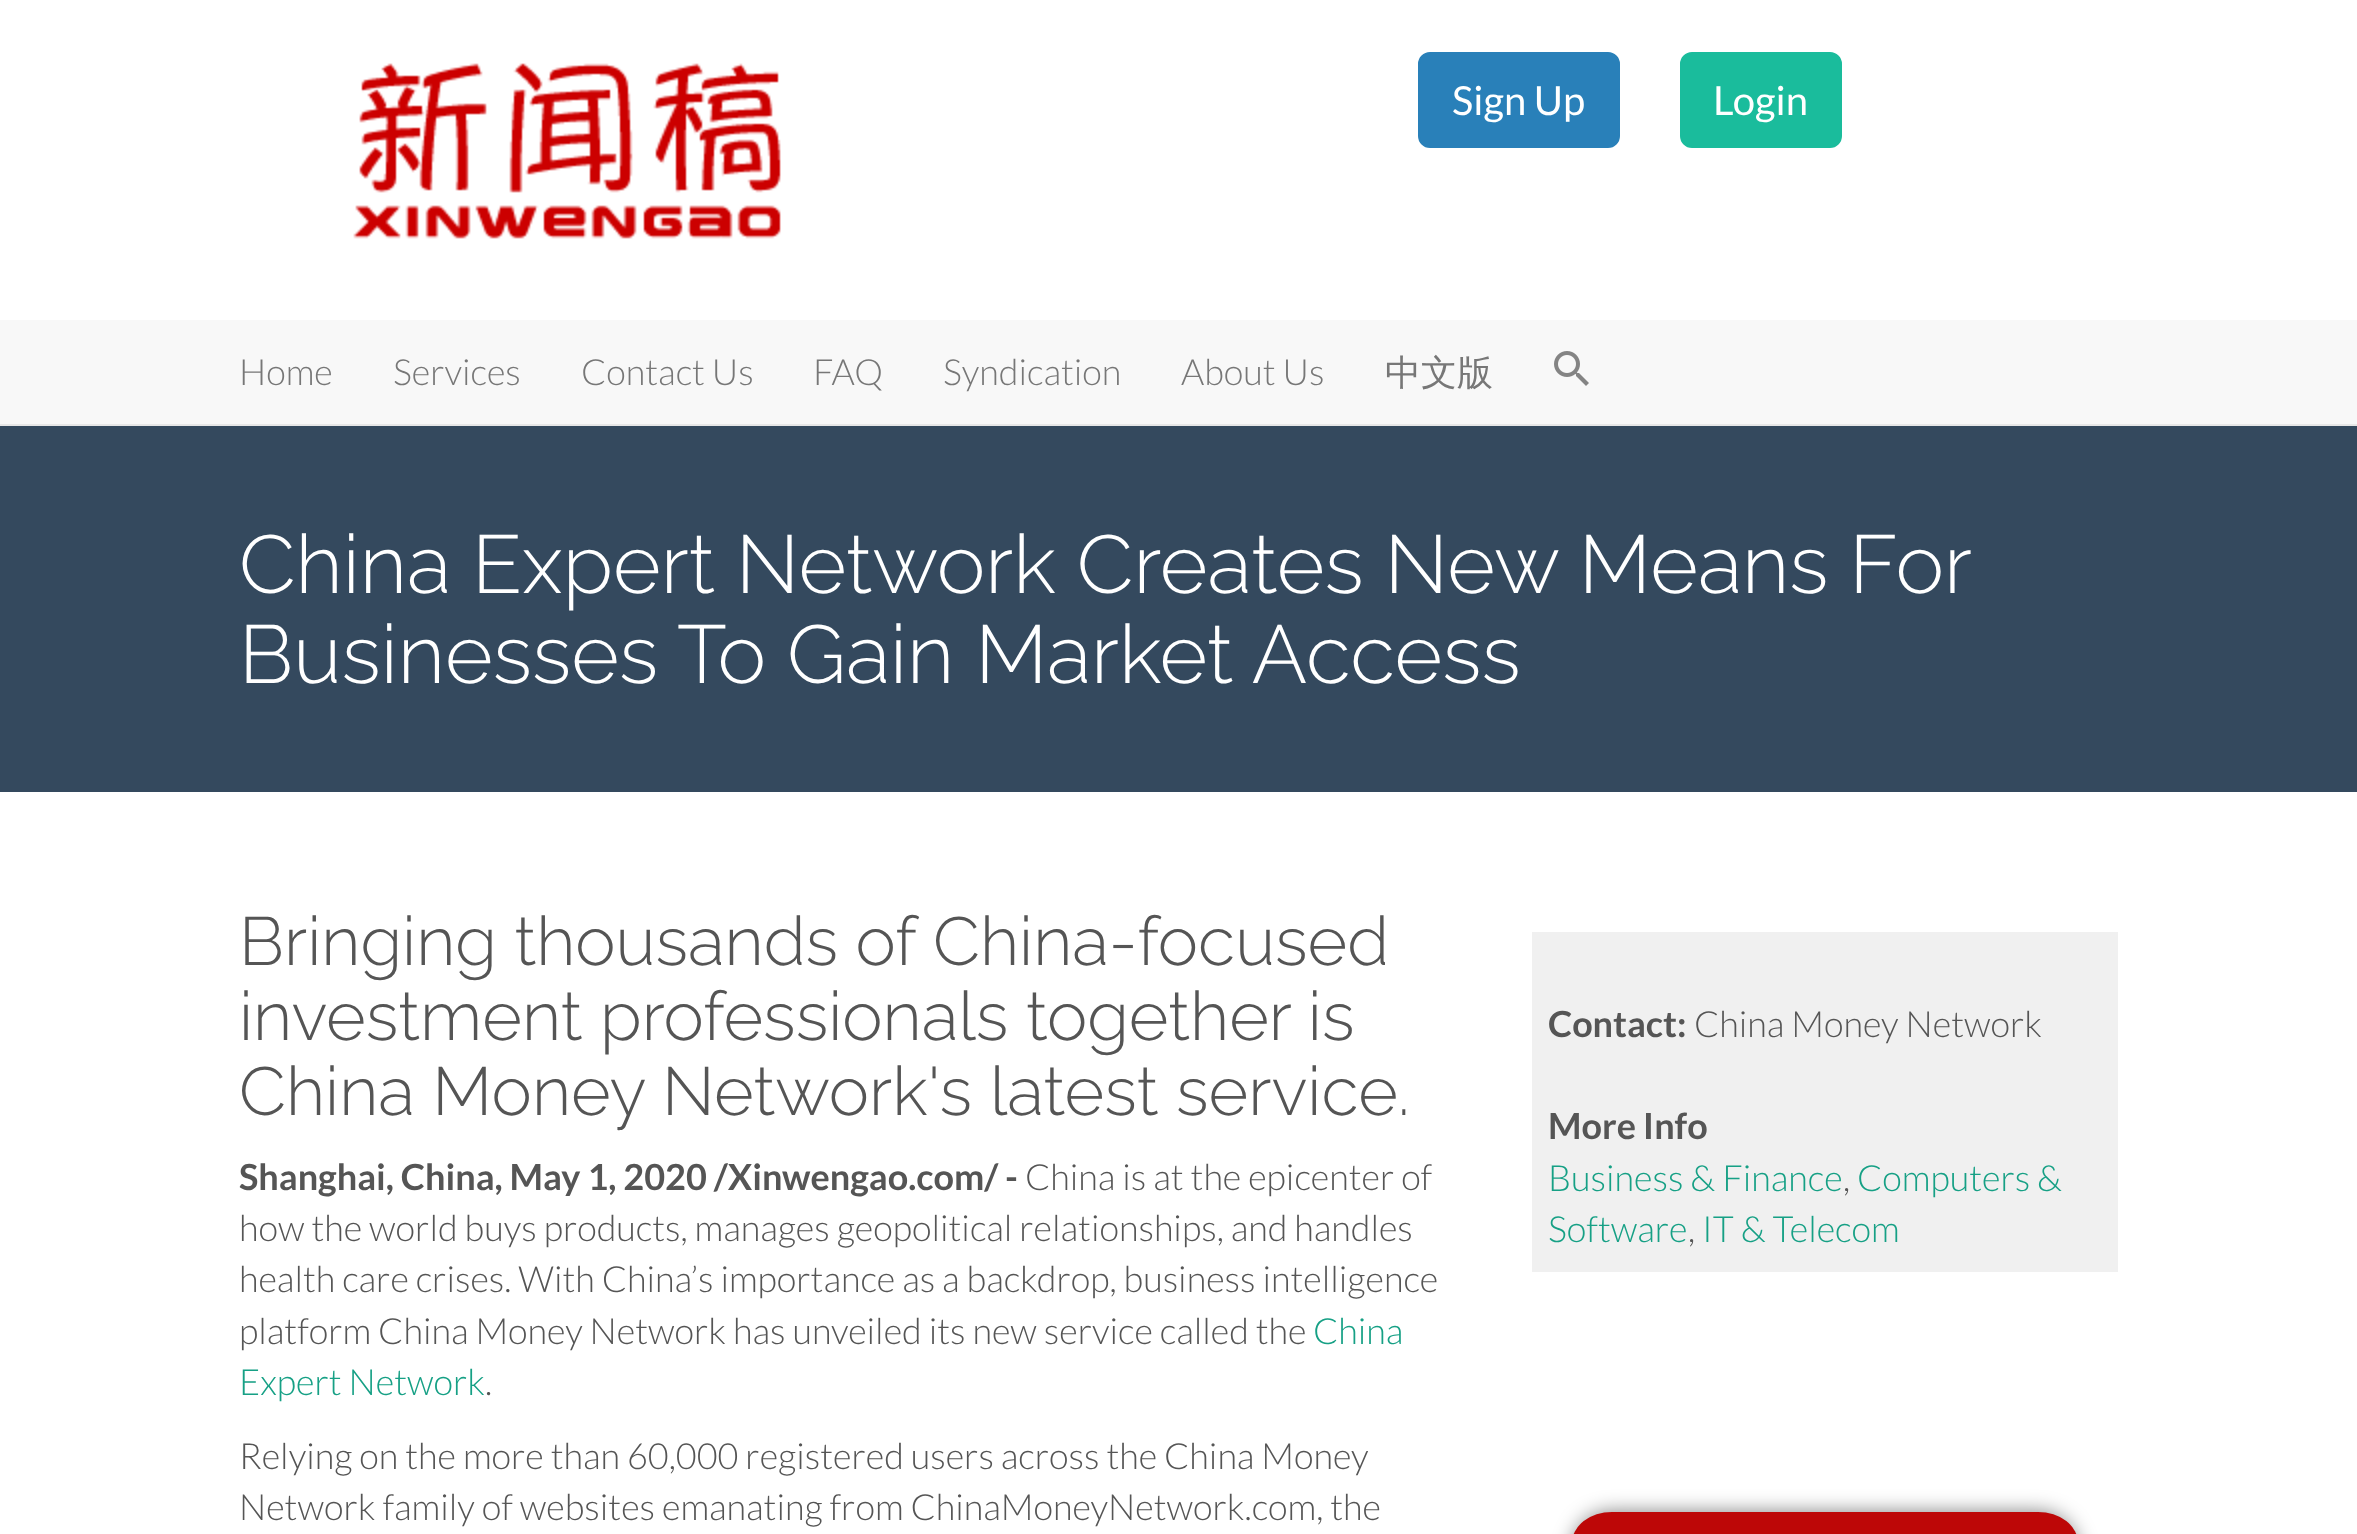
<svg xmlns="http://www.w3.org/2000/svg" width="2357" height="1534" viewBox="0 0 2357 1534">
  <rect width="100%" height="100%" fill="rgb(255,255,255)"/>
  <image x="353" y="63" width="428" height="176" href="pic1.png"/>
  <rect x="1419" y="53" width="200" height="94" rx="11" fill="rgb(41,128,185)" stroke="rgb(41,128,185)" stroke-width="2"/>
  <text x="1452" y="115" font-family="Lato" font-size="40" fill="rgb(255,255,255)">Sign Up</text>
  <rect x="1681" y="53" width="160" height="94" rx="11" fill="rgb(26,188,156)" stroke="rgb(26,188,156)" stroke-width="2"/>
  <text x="1713" y="115" font-family="Lato" font-size="40" fill="rgb(255,255,255)">Login</text>
  <rect x="0" y="320" width="2357" height="104" fill="rgb(248,248,248)"/>
  <rect x="0" y="424" width="2357" height="2" fill="rgb(231,231,231)"/>
  <g font-family="Lato" font-size="36" font-weight="300" fill="rgb(119,119,119)">
    <text x="239" y="385">Home</text>
    <text x="393" y="385">Services</text>
    <text x="581" y="385">Contact Us</text>
    <text x="813" y="385">FAQ</text>
    <text x="943" y="385">Syndication</text>
    <text x="1181" y="385">About Us</text>
  </g>
  <text x="1385" y="385" font-family="WenQuanYi Zen Hei" font-size="36" font-weight="500" fill="rgb(119,119,119)">中文版</text>
  <image x="1554" y="351" width="35" height="35" href="pic2.png"/>
  <rect x="0" y="426" width="2357" height="366" fill="rgb(52,73,94)"/>
  <g font-family="Raleway" font-size="82" font-weight="300" fill="rgb(255,255,255)">
    <text>
      <tspan x="239" y="593" word-spacing="-0.25">China Expert Network Creates New Means For</tspan>
      <tspan x="239" y="683">Businesses To Gain Market Access</tspan>
    </text>
  </g>
  <g font-family="Raleway" font-size="68" font-weight="300" fill="rgb(85,85,85)">
    <text>
      <tspan x="239" y="965">Bringing thousands of China-focused</tspan>
      <tspan x="239" y="1040">investment professionals together is</tspan>
      <tspan x="239" y="1115">China Money Network's latest service.</tspan>
    </text>
  </g>
  <text x="239" y="1190" font-family="Lato" font-size="36" font-weight="bold" fill="rgb(85,85,85)">Shanghai, China, May 1, 2020 /Xinwengao.com/ -</text>
  <g font-family="Lato" font-size="36" font-weight="300" fill="rgb(85,85,85)">
    <text x="1025" y="1190">China is at the epicenter of</text>
    <text>
      <tspan x="239" y="1241">how the world buys products, manages geopolitical relationships, and handles</tspan>
      <tspan x="239" y="1292">health care crises. With China’s importance as a backdrop, business intelligence</tspan>
      <tspan x="239" y="1344">platform China Money Network has unveiled its new service called the</tspan>
    </text>
  </g>
  <g font-family="Lato" font-size="36" font-weight="300" fill="rgb(22,160,133)">
    <text x="1313" y="1344">China</text>
    <text x="239" y="1395">Expert Network</text>
  </g>
  <g font-family="Lato" font-size="36" font-weight="300" fill="rgb(85,85,85)">
    <text x="485" y="1395">.</text>
    <text>
      <tspan x="239" y="1469">Relying on the more than 60,000 registered users across the China Money</tspan>
      <tspan x="239" y="1520">Network family of websites emanating from ChinaMoneyNetwork.com, the</tspan>
    </text>
  </g>
  <rect x="1532" y="932" width="586" height="340" fill="rgb(240,240,240)"/>
  <text x="1548" y="1037" font-family="Lato" font-size="36" font-weight="bold" fill="rgb(85,85,85)">Contact:</text>
  <text x="1694" y="1037" font-family="Lato" font-size="36" font-weight="300" fill="rgb(85,85,85)">China Money Network</text>
  <text x="1548" y="1139" font-family="Lato" font-size="36" font-weight="bold" fill="rgb(85,85,85)">More Info</text>
  <text x="1548" y="1191" font-family="Lato" font-size="36" font-weight="300" fill="rgb(22,160,133)">Business &amp; Finance</text>
  <text x="1843" y="1191" font-family="Lato" font-size="36" font-weight="300" fill="rgb(85,85,85)">,</text>
  <g font-family="Lato" font-size="36" font-weight="300" fill="rgb(22,160,133)">
    <text x="1857" y="1191">Computers &amp;</text>
    <text x="1548" y="1242">Software</text>
  </g>
  <text x="1688" y="1242" font-family="Lato" font-size="36" font-weight="300" fill="rgb(85,85,85)">,</text>
  <text x="1702" y="1242" font-family="Lato" font-size="36" font-weight="300" fill="rgb(22,160,133)">IT &amp; Telecom</text>
  <rect x="1572" y="1512" width="506" height="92" rx="40" fill="rgba(0,0,0,0.5)" filter="blur(10px)"/>
  <rect x="1572" y="1512" width="506" height="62" rx="40" fill="rgb(189,7,7)"/>
</svg>
